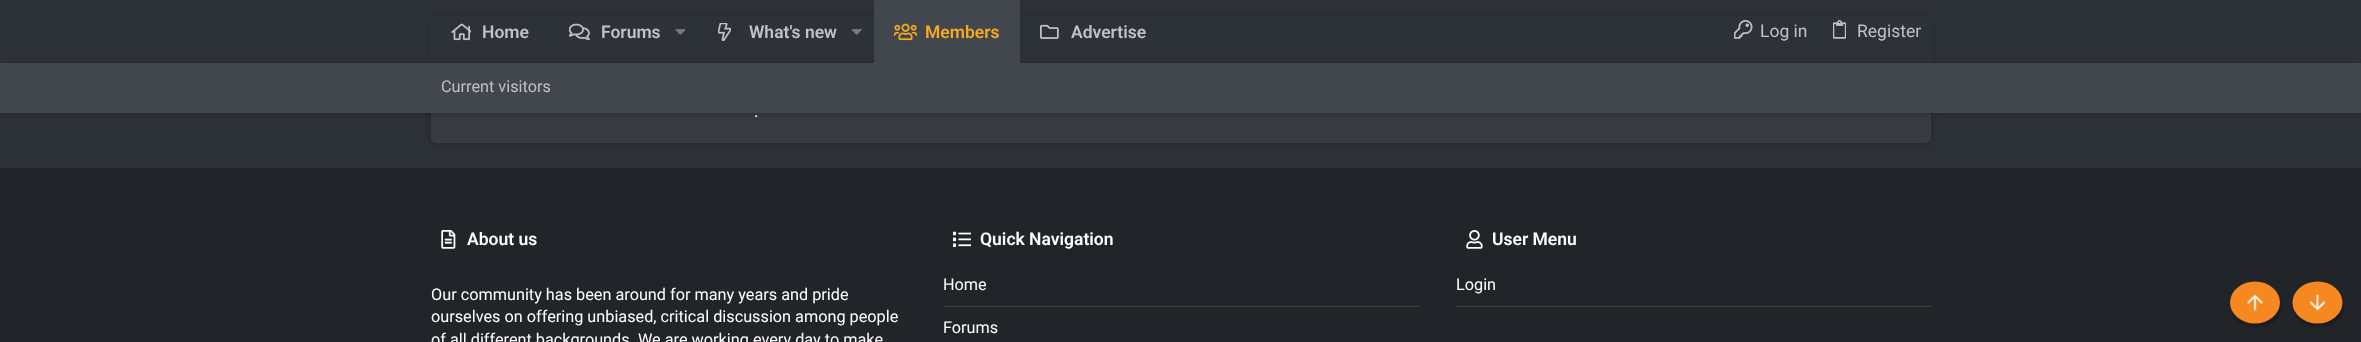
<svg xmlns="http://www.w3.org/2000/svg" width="2361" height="342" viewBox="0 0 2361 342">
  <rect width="100%" height="100%" fill="rgb(45,50,56)"/>
  <rect x="431" y="18" width="1500" height="126" rx="5" fill="rgba(0,0,0,0.2)" filter="blur(3px)"/>
  <rect x="431" y="16" width="1500" height="127" rx="5" fill="rgb(56,60,66)"/>
  <rect x="429" y="16" width="1504" height="47" fill="rgb(45,50,56)"/>
  <image x="451" y="23" width="20" height="18" href="pic1.png"/>
  <text x="482" y="38" font-family="Roboto" font-size="17.5" font-weight="600" fill="rgb(192,194,195)">Home</text>
  <image x="569" y="23" width="21" height="18" href="pic2.png"/>
  <text x="601" y="38" font-family="Roboto" font-size="17.5" font-weight="600" fill="rgb(192,194,195)">Forums</text>
  <image x="675" y="29" width="10" height="6" href="pic3.png"/>
  <image x="718" y="23" width="13" height="18" href="pic4.png"/>
  <text x="749" y="38" font-family="Roboto" font-size="17.5" font-weight="600" fill="rgb(192,194,195)">What's new</text>
  <image x="851" y="29" width="11" height="6" href="pic5.png"/>
  <rect x="0" y="64" width="2361" height="50" fill="rgba(0,0,0,0.2)" filter="blur(3px)"/>
  <rect x="874" y="0" width="146" height="63" fill="rgb(66,70,77)"/>
  <image x="894" y="23" width="24" height="18" href="pic6.png"/>
  <text x="925" y="38" font-family="Roboto" font-size="17.5" font-weight="600" fill="rgb(244,170,33)">Members</text>
  <image x="1040" y="24" width="19" height="15" href="pic7.png"/>
  <text x="1071" y="38" font-family="Roboto" font-size="17.5" font-weight="600" fill="rgb(192,194,195)">Advertise</text>
  <image x="1734" y="20" width="19" height="19" href="pic8.png"/>
  <text x="1760" y="37" font-family="Roboto" font-size="17.5" fill="rgb(192,194,195)">Log in</text>
  <image x="1833" y="20" width="13" height="19" href="pic9.png"/>
  <text x="1857" y="37" font-family="Roboto" font-size="17.5" fill="rgb(192,194,195)">Register</text>
  <rect x="0" y="63" width="2361" height="50" fill="rgb(66,70,77)"/>
  <text x="441" y="92" font-family="Roboto" font-size="16.25" fill="rgb(192,194,195)">Current visitors</text>
  <text x="754" y="117" font-family="Roboto" font-size="17.5" fill="rgb(255,255,255)">.</text>
  <rect x="0" y="168" width="2361" height="174" fill="rgb(33,36,40)"/>
  <image x="441" y="230" width="15" height="19" href="pic10.png"/>
  <text x="467" y="245" font-family="Roboto" font-size="17.5" font-weight="600" fill="rgb(255,255,255)">About us</text>
  <g font-family="Roboto" font-size="16.25" fill="rgb(255,255,255)">
    <text>
      <tspan x="431" y="300">Our community has been around for many years and pride</tspan>
      <tspan x="431" y="322">ourselves on offering unbiased, critical discussion among people</tspan>
      <tspan x="431" y="345">of all different backgrounds. We are working every day to make</tspan>
    </text>
  </g>
  <image x="953" y="231" width="18" height="16" href="pic11.png"/>
  <text x="980" y="245" font-family="Roboto" font-size="17.5" font-weight="600" fill="rgb(255,255,255)">Quick Navigation</text>
  <rect x="944" y="306" width="475" height="1" fill="rgb(60,62,66)"/>
  <g font-family="Roboto" font-size="16.25" fill="rgb(255,255,255)">
    <text x="943" y="290">Home</text>
    <text x="943" y="333">Forums</text>
  </g>
  <image x="1466" y="230" width="17" height="19" href="pic12.png"/>
  <text x="1492" y="245" font-family="Roboto" font-size="17.5" font-weight="600" fill="rgb(255,255,255)">User Menu</text>
  <rect x="1456" y="306" width="475" height="1" fill="rgb(60,62,66)"/>
  <text x="1456" y="290" font-family="Roboto" font-size="16.25" fill="rgb(255,255,255)">Login</text>
  <rect x="2231" y="284" width="50" height="42" rx="21" fill="rgba(0,0,0,0.25)" filter="blur(1px)"/>
  <ellipse cx="2255" cy="302.5" rx="25" ry="21" fill="rgb(245,136,33)"/>
  <image x="2247" y="294" width="17" height="17" href="pic13.png"/>
  <rect x="2294" y="284" width="50" height="42" rx="21" fill="rgba(0,0,0,0.25)" filter="blur(1px)"/>
  <ellipse cx="2317.5" cy="302.5" rx="25" ry="21" fill="rgb(245,136,33)"/>
  <image x="2309" y="294" width="17" height="17" href="pic14.png"/>
</svg>
